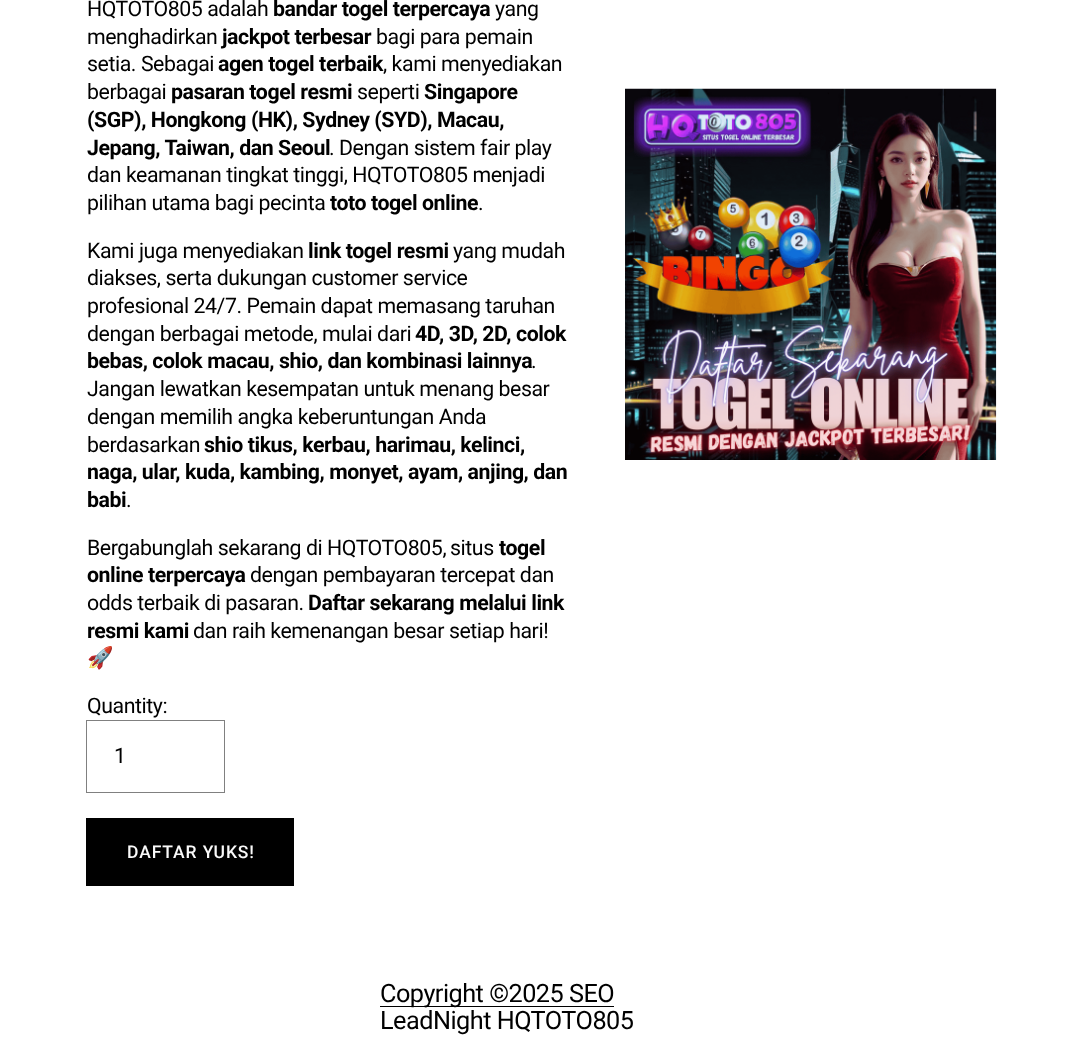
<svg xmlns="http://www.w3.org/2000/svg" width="1082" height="1061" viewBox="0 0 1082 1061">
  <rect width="100%" height="100%" fill="rgb(255,255,255)"/>
  <text x="87" y="16" font-family="Roboto" font-size="21.3" letter-spacing="-0.43" fill="rgb(0,0,0)">HQTOTO805 adalah</text>
  <text x="273" y="16" font-family="Roboto" font-size="21.3" font-weight="bold" letter-spacing="-0.43" fill="rgb(0,0,0)">bandar togel terpercaya</text>
  <g font-family="Roboto" font-size="21.3" letter-spacing="-0.43" fill="rgb(0,0,0)">
    <text x="495" y="16">yang</text>
    <text x="87" y="44">menghadirkan</text>
  </g>
  <text x="222" y="44" font-family="Roboto" font-size="21.3" font-weight="bold" letter-spacing="-0.43" fill="rgb(0,0,0)">jackpot terbesar</text>
  <g font-family="Roboto" font-size="21.3" letter-spacing="-0.43" fill="rgb(0,0,0)">
    <text x="376" y="44">bagi para pemain</text>
    <text x="87" y="71">setia. Sebagai</text>
  </g>
  <text x="218" y="71" font-family="Roboto" font-size="21.3" font-weight="bold" letter-spacing="-0.43" fill="rgb(0,0,0)">agen togel terbaik</text>
  <g font-family="Roboto" font-size="21.3" letter-spacing="-0.43" fill="rgb(0,0,0)">
    <text x="383" y="71">, kami menyediakan</text>
    <text x="87" y="99">berbagai</text>
  </g>
  <text x="171" y="99" font-family="Roboto" font-size="21.3" font-weight="bold" letter-spacing="-0.43" fill="rgb(0,0,0)">pasaran togel resmi</text>
  <text x="357" y="99" font-family="Roboto" font-size="21.3" letter-spacing="-0.43" fill="rgb(0,0,0)">seperti</text>
  <g font-family="Roboto" font-size="21.3" font-weight="bold" letter-spacing="-0.43" fill="rgb(0,0,0)">
    <text x="424" y="99">Singapore</text>
    <text>
      <tspan x="87" y="127">(SGP), Hongkong (HK), Sydney (SYD), Macau,</tspan>
      <tspan x="87" y="155">Jepang, Taiwan, dan Seoul</tspan>
    </text>
  </g>
  <g font-family="Roboto" font-size="21.3" letter-spacing="-0.43" fill="rgb(0,0,0)">
    <text x="329" y="155">. Dengan sistem fair play</text>
    <text>
      <tspan x="87" y="182">dan keamanan tingkat tinggi, HQTOTO805 menjadi</tspan>
      <tspan x="87" y="210">pilihan utama bagi pecinta</tspan>
    </text>
  </g>
  <text x="330" y="210" font-family="Roboto" font-size="21.3" font-weight="bold" letter-spacing="-0.43" fill="rgb(0,0,0)">toto togel online</text>
  <g font-family="Roboto" font-size="21.3" letter-spacing="-0.43" fill="rgb(0,0,0)">
    <text x="478" y="210">.</text>
    <text x="87" y="258">Kami juga menyediakan</text>
  </g>
  <text x="308" y="258" font-family="Roboto" font-size="21.3" font-weight="bold" letter-spacing="-0.43" fill="rgb(0,0,0)">link togel resmi</text>
  <g font-family="Roboto" font-size="21.3" letter-spacing="-0.43" fill="rgb(0,0,0)">
    <text x="453" y="258">yang mudah</text>
    <text>
      <tspan x="87" y="285">diakses, serta dukungan customer service</tspan>
      <tspan x="87" y="313">profesional 24/7. Pemain dapat memasang taruhan</tspan>
      <tspan x="87" y="341">dengan berbagai metode, mulai dari</tspan>
    </text>
  </g>
  <g font-family="Roboto" font-size="21.3" font-weight="bold" letter-spacing="-0.43" fill="rgb(0,0,0)">
    <text x="415" y="341">4D, 3D, 2D, colok</text>
    <text x="87" y="368">bebas, colok macau, shio, dan kombinasi lainnya</text>
  </g>
  <g font-family="Roboto" font-size="21.3" letter-spacing="-0.43" fill="rgb(0,0,0)">
    <text x="531" y="368">.</text>
    <text>
      <tspan x="87" y="396">Jangan lewatkan kesempatan untuk menang besar</tspan>
      <tspan x="87" y="424">dengan memilih angka keberuntungan Anda</tspan>
      <tspan x="87" y="452">berdasarkan</tspan>
    </text>
  </g>
  <g font-family="Roboto" font-size="21.3" font-weight="bold" letter-spacing="-0.43" fill="rgb(0,0,0)">
    <text x="204" y="452">shio tikus, kerbau, harimau, kelinci,</text>
    <text>
      <tspan x="87" y="479">naga, ular, kuda, kambing, monyet, ayam, anjing, dan</tspan>
      <tspan x="87" y="507">babi</tspan>
    </text>
  </g>
  <g font-family="Roboto" font-size="21.3" letter-spacing="-0.43" fill="rgb(0,0,0)">
    <text x="126" y="507">.</text>
    <text x="87" y="555">Bergabunglah sekarang di HQTOTO805,</text>
    <text x="450" y="555">situs</text>
  </g>
  <g font-family="Roboto" font-size="21.3" font-weight="bold" letter-spacing="-0.43" fill="rgb(0,0,0)">
    <text x="499" y="555">togel</text>
    <text x="87" y="582">online terpercaya</text>
  </g>
  <g font-family="Roboto" font-size="21.3" letter-spacing="-0.43" fill="rgb(0,0,0)">
    <text x="250" y="582">dengan pembayaran tercepat dan</text>
    <text x="87" y="610">odds terbaik di pasaran.</text>
  </g>
  <g font-family="Roboto" font-size="21.3" font-weight="bold" letter-spacing="-0.43" fill="rgb(0,0,0)">
    <text x="308" y="610">Daftar sekarang melalui link</text>
    <text x="87" y="638">resmi kami</text>
  </g>
  <text x="193" y="638" font-family="Roboto" font-size="21.3" letter-spacing="-0.43" fill="rgb(0,0,0)">dan raih kemenangan besar setiap hari!</text>
  <text x="87" y="665" font-family="Noto Color Emoji" font-size="21.3" letter-spacing="-0.43" fill="rgb(0,0,0)">🚀</text>
  <text x="87" y="713" font-family="Roboto" font-size="21.3" letter-spacing="-0.43" fill="rgb(0,0,0)">Quantity:</text>
  <rect x="86.5" y="720.5" width="138" height="72" fill="none" stroke="rgb(128,128,128)"/>
  <text x="114" y="763" font-family="Roboto" font-size="21.3" fill="rgb(0,0,0)">1</text>
  <rect x="86" y="818" width="208" height="68" fill="rgb(0,0,0)"/>
  <text x="127" y="858" font-family="Roboto" font-size="17.5" font-weight="500" letter-spacing="0.9" fill="rgb(250,250,250)">DAFTAR YUKS!</text>
  <image x="625" y="88" width="372" height="372" href="pic1.png"/>
  <rect x="380" y="1006" width="234" height="1" fill="rgb(0,0,0)"/>
  <g font-family="Roboto" font-size="25.25" letter-spacing="-0.5" fill="rgb(0,0,0)">
    <text>
      <tspan x="380" y="1002">Copyright ©2025 SEO</tspan>
      <tspan x="380" y="1029">LeadNight HQTOTO805</tspan>
    </text>
  </g>
</svg>
